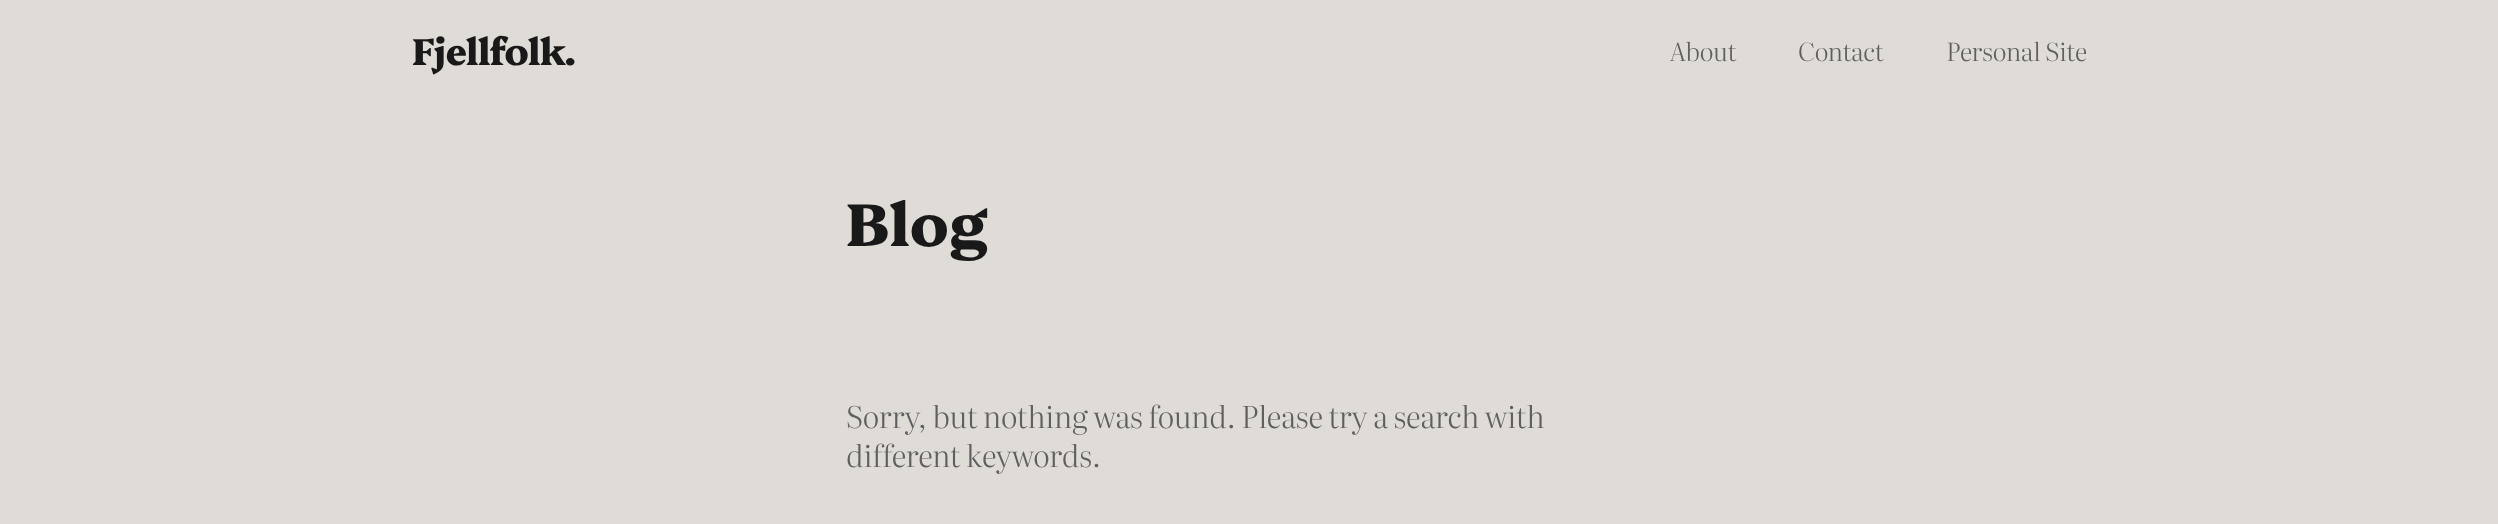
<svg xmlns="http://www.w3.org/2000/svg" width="2498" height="524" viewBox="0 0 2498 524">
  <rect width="100%" height="100%" fill="rgb(223,220,215)"/>
  <text x="412" y="65" font-family="Platypi" font-size="37.5" font-weight="800" letter-spacing="-0.75" fill="rgb(25,25,25)">Fjellfolk.</text>
  <g font-family="Literata" font-size="25" font-weight="300" letter-spacing="-0.3" fill="rgb(95,95,95)">
    <text x="1670" y="61">About</text>
    <text x="1798" y="61">Contact</text>
    <text x="1946" y="61">Personal Site</text>
  </g>
  <text x="846" y="246" font-family="Platypi" font-size="60" font-weight="800" fill="rgb(25,25,25)">Blog</text>
  <g font-family="Literata" font-size="30" font-weight="300" letter-spacing="-0.3" fill="rgb(95,95,95)">
    <text>
      <tspan x="846" y="428">Sorry, but nothing was found. Please try a search with</tspan>
      <tspan x="846" y="467">different keywords.</tspan>
    </text>
  </g>
</svg>
